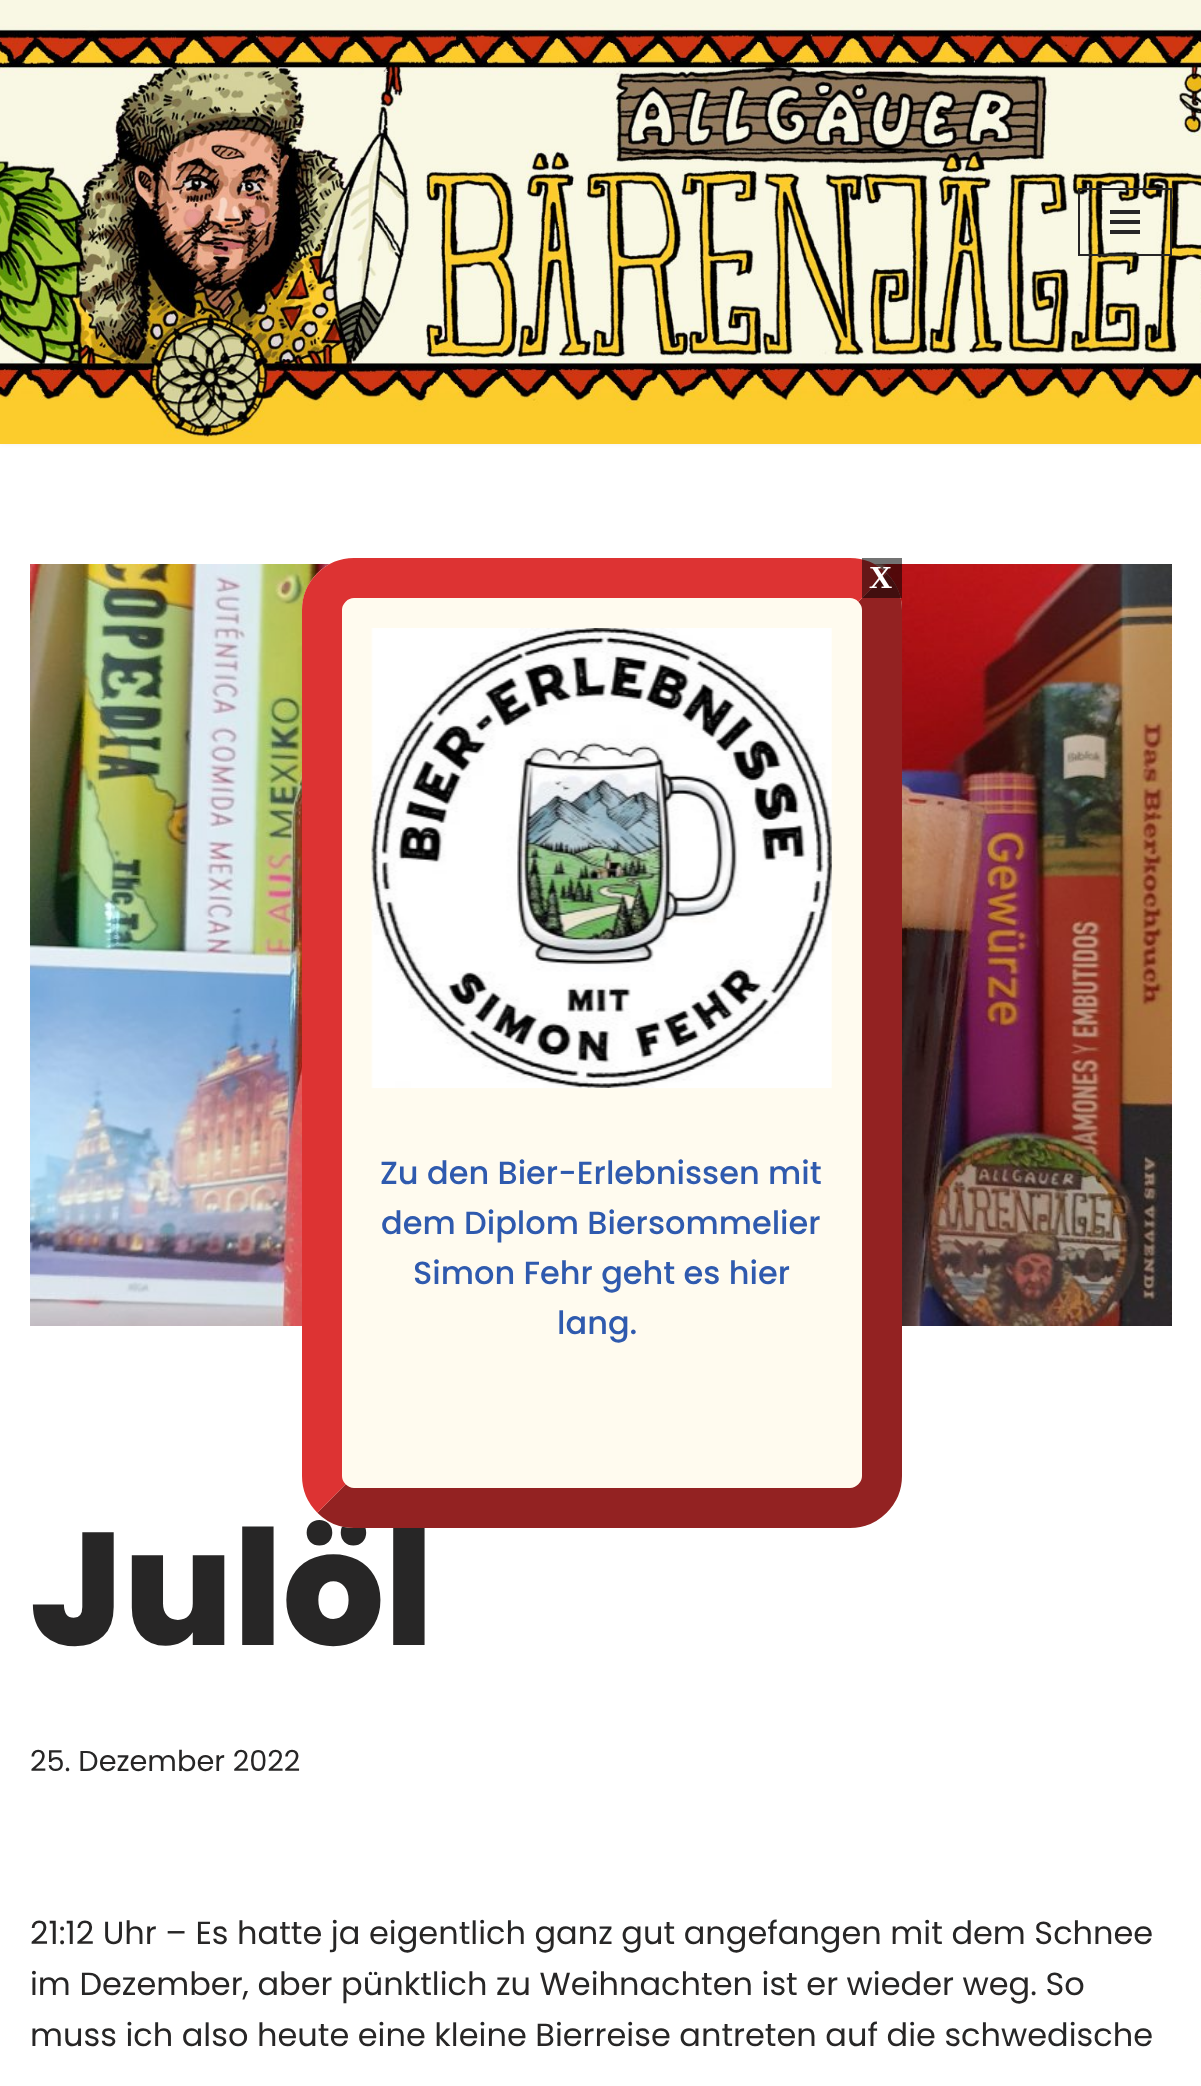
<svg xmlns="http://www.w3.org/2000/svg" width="1201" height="2086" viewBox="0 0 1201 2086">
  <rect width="100%" height="100%" fill="rgb(255,255,255)"/>
  <image x="30" y="564" width="1142" height="762" href="pic3.png"/>
  <text x="30" y="1645" font-family="Poppins" font-size="160" font-weight="800" fill="rgb(39,38,38)">Julöl</text>
  <rect x="302" y="558" width="600" height="970" rx="52" fill="rgb(255,251,239)"/>
  <path d="M872.5 587.5C878.5 593.5 882 601.5 882 610V1476C882 1484.5 878.5 1492.5 872.5 1498.5C866.5 1504.5 858.5 1508 850 1508H354C345.5 1508 337.5 1504.5 331.5 1498.5" fill="none" stroke="rgb(147,34,34)" stroke-width="40"/>
  <path d="M331.5 1498.5C325.5 1492.5 322 1484.5 322 1476V610C322 601.5 325.5 593.5 331.5 587.5C337.5 581.5 345.5 578 354 578H850C858.5 578 866.5 581.5 872.5 587.5" fill="none" stroke="rgb(221,51,51)" stroke-width="40"/>
  <rect x="862" y="558" width="40" height="40" fill="rgba(0,0,0,0.55)"/>
  <text x="869" y="588" font-family="Liberation Serif" font-size="32" font-weight="bold" fill="rgb(255,255,255)">X</text>
  <image x="371" y="628" width="461" height="460" href="pic1.png"/>
  <g font-family="Poppins" font-size="32" font-weight="500" fill="rgb(47,90,174)">
    <text x="380" y="1184">Zu den Bier-Erlebnissen mit</text>
    <text x="381" y="1234">dem Diplom Biersommelier</text>
    <text x="413" y="1284">Simon Fehr geht es hier</text>
    <text x="557" y="1334">lang.</text>
  </g>
  <rect x="0" y="-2" width="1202" height="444" fill="rgba(0,0,0,0.1)" filter="blur(3px)"/>
  <image x="0" y="0" width="1201" height="444" href="pic2.png"/>
  <rect x="1079" y="189" width="92" height="66" fill="none" stroke="rgb(39,38,38)" stroke-width="2"/>
  <rect x="1110" y="210" width="30" height="4" fill="rgb(39,38,38)"/>
  <rect x="1110" y="220" width="30" height="4" fill="rgb(39,38,38)"/>
  <rect x="1110" y="230" width="30" height="4" fill="rgb(39,38,38)"/>
  <text x="30" y="1771" font-family="Poppins" font-size="28.75" fill="rgb(39,38,38)">25. Dezember 2022</text>
  <g font-family="Poppins" font-size="32" fill="rgb(39,38,38)">
    <text>
      <tspan x="30" y="1944">21:12 Uhr – Es hatte ja eigentlich ganz gut angefangen mit dem Schnee</tspan>
      <tspan x="30" y="1995">im Dezember, aber pünktlich zu Weihnachten ist er wieder weg. So</tspan>
      <tspan x="30" y="2046">muss ich also heute eine kleine Bierreise antreten auf die schwedische</tspan>
    </text>
  </g>
</svg>
